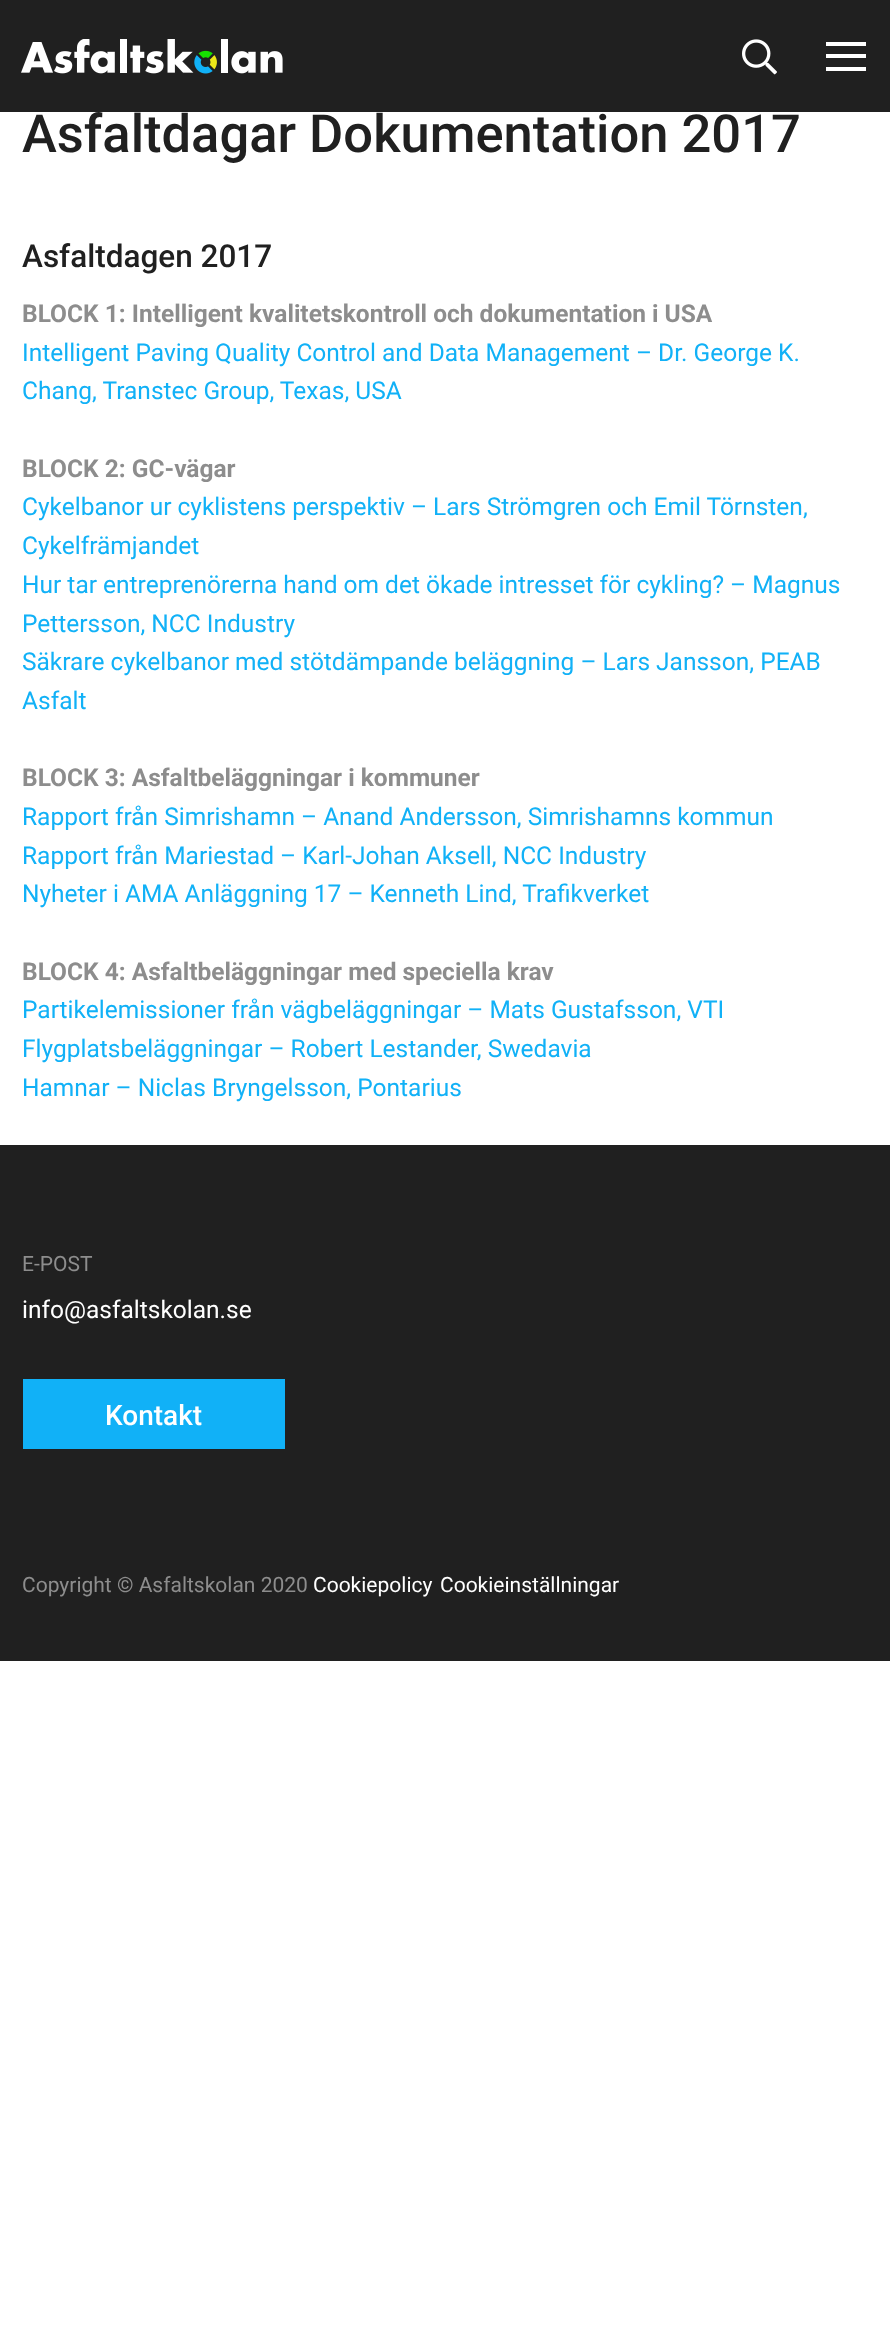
<svg xmlns="http://www.w3.org/2000/svg" width="890" height="2332" viewBox="0 0 890 2332">
  <rect width="100%" height="100%" fill="rgb(255,255,255)"/>
  <rect x="0" y="0" width="890" height="112" fill="rgb(32,32,32)"/>
  <image x="21" y="39" width="262" height="35" href="pic1.png"/>
  <image x="742" y="39" width="35" height="36" href="pic2.png"/>
  <rect x="826" y="54" width="40" height="4" fill="rgb(255,255,255)"/>
  <rect x="826" y="42" width="40" height="4" fill="rgb(255,255,255)"/>
  <rect x="826" y="67" width="40" height="4" fill="rgb(255,255,255)"/>
  <text x="22" y="152" font-family="Roboto" font-size="52.5" font-weight="500" fill="rgb(32,32,32)">Asfaltdagar Dokumentation 2017</text>
  <text x="22" y="267" font-family="Roboto" font-size="31.5" font-weight="500" fill="rgb(32,32,32)">Asfaltdagen 2017</text>
  <text x="22" y="322" font-family="Roboto" font-size="24.5" font-weight="bold" fill="rgb(141,141,141)">BLOCK 1: Intelligent kvalitetskontroll och dokumentation i USA</text>
  <g font-family="Roboto" font-size="24.5" fill="rgb(17,177,247)">
    <text>
      <tspan x="22" y="361">Intelligent Paving Quality Control and Data Management – Dr. George K.</tspan>
      <tspan x="22" y="399">Chang, Transtec Group, Texas, USA</tspan>
    </text>
  </g>
  <text x="22" y="477" font-family="Roboto" font-size="24.5" font-weight="bold" fill="rgb(141,141,141)">BLOCK 2: GC-vägar</text>
  <g font-family="Roboto" font-size="24.5" fill="rgb(17,177,247)">
    <text>
      <tspan x="22" y="515">Cykelbanor ur cyklistens perspektiv – Lars Strömgren och Emil Törnsten,</tspan>
      <tspan x="22" y="554">Cykelfrämjandet</tspan>
      <tspan x="22" y="593">Hur tar entreprenörerna hand om det ökade intresset för cykling? – Magnus</tspan>
      <tspan x="22" y="632">Pettersson, NCC Industry</tspan>
      <tspan x="22" y="670">Säkrare cykelbanor med stötdämpande beläggning – Lars Jansson, PEAB</tspan>
      <tspan x="22" y="709">Asfalt</tspan>
    </text>
  </g>
  <text x="22" y="786" font-family="Roboto" font-size="24.5" font-weight="bold" fill="rgb(141,141,141)">BLOCK 3: Asfaltbeläggningar i kommuner</text>
  <g font-family="Roboto" font-size="24.5" fill="rgb(17,177,247)">
    <text>
      <tspan x="22" y="825">Rapport från Simrishamn – Anand Andersson, Simrishamns kommun</tspan>
      <tspan x="22" y="864">Rapport från Mariestad – Karl-Johan Aksell, NCC Industry</tspan>
      <tspan x="22" y="902">Nyheter i AMA Anläggning 17 – Kenneth Lind, Trafikverket</tspan>
    </text>
  </g>
  <text x="22" y="980" font-family="Roboto" font-size="24.5" font-weight="bold" fill="rgb(141,141,141)">BLOCK 4: Asfaltbeläggningar med speciella krav</text>
  <g font-family="Roboto" font-size="24.5" fill="rgb(17,177,247)">
    <text>
      <tspan x="22" y="1018">Partikelemissioner från vägbeläggningar – Mats Gustafsson, VTI</tspan>
      <tspan x="22" y="1057">Flygplatsbeläggningar – Robert Lestander, Swedavia</tspan>
      <tspan x="22" y="1096">Hamnar – Niclas Bryngelsson, Pontarius</tspan>
    </text>
  </g>
  <rect x="0" y="1145" width="890" height="516" fill="rgb(32,32,32)"/>
  <text x="22" y="1271" font-family="Roboto" font-size="21" fill="rgb(141,141,141)">E-POST</text>
  <text x="22" y="1318" font-family="Roboto" font-size="24.5" fill="rgb(255,255,255)">info@asfaltskolan.se</text>
  <rect x="23" y="1379" width="262" height="70" fill="rgb(17,177,247)"/>
  <text x="105" y="1425" font-family="Roboto" font-size="28" font-weight="500" fill="rgb(255,255,255)">Kontakt</text>
  <text x="22" y="1592" font-family="Roboto" font-size="21" fill="rgb(141,141,141)">Copyright © Asfaltskolan 2020</text>
  <g font-family="Roboto" font-size="21" fill="rgb(255,255,255)">
    <text x="313" y="1592">Cookiepolicy</text>
    <text x="440" y="1592">Cookieinställningar</text>
  </g>
</svg>
